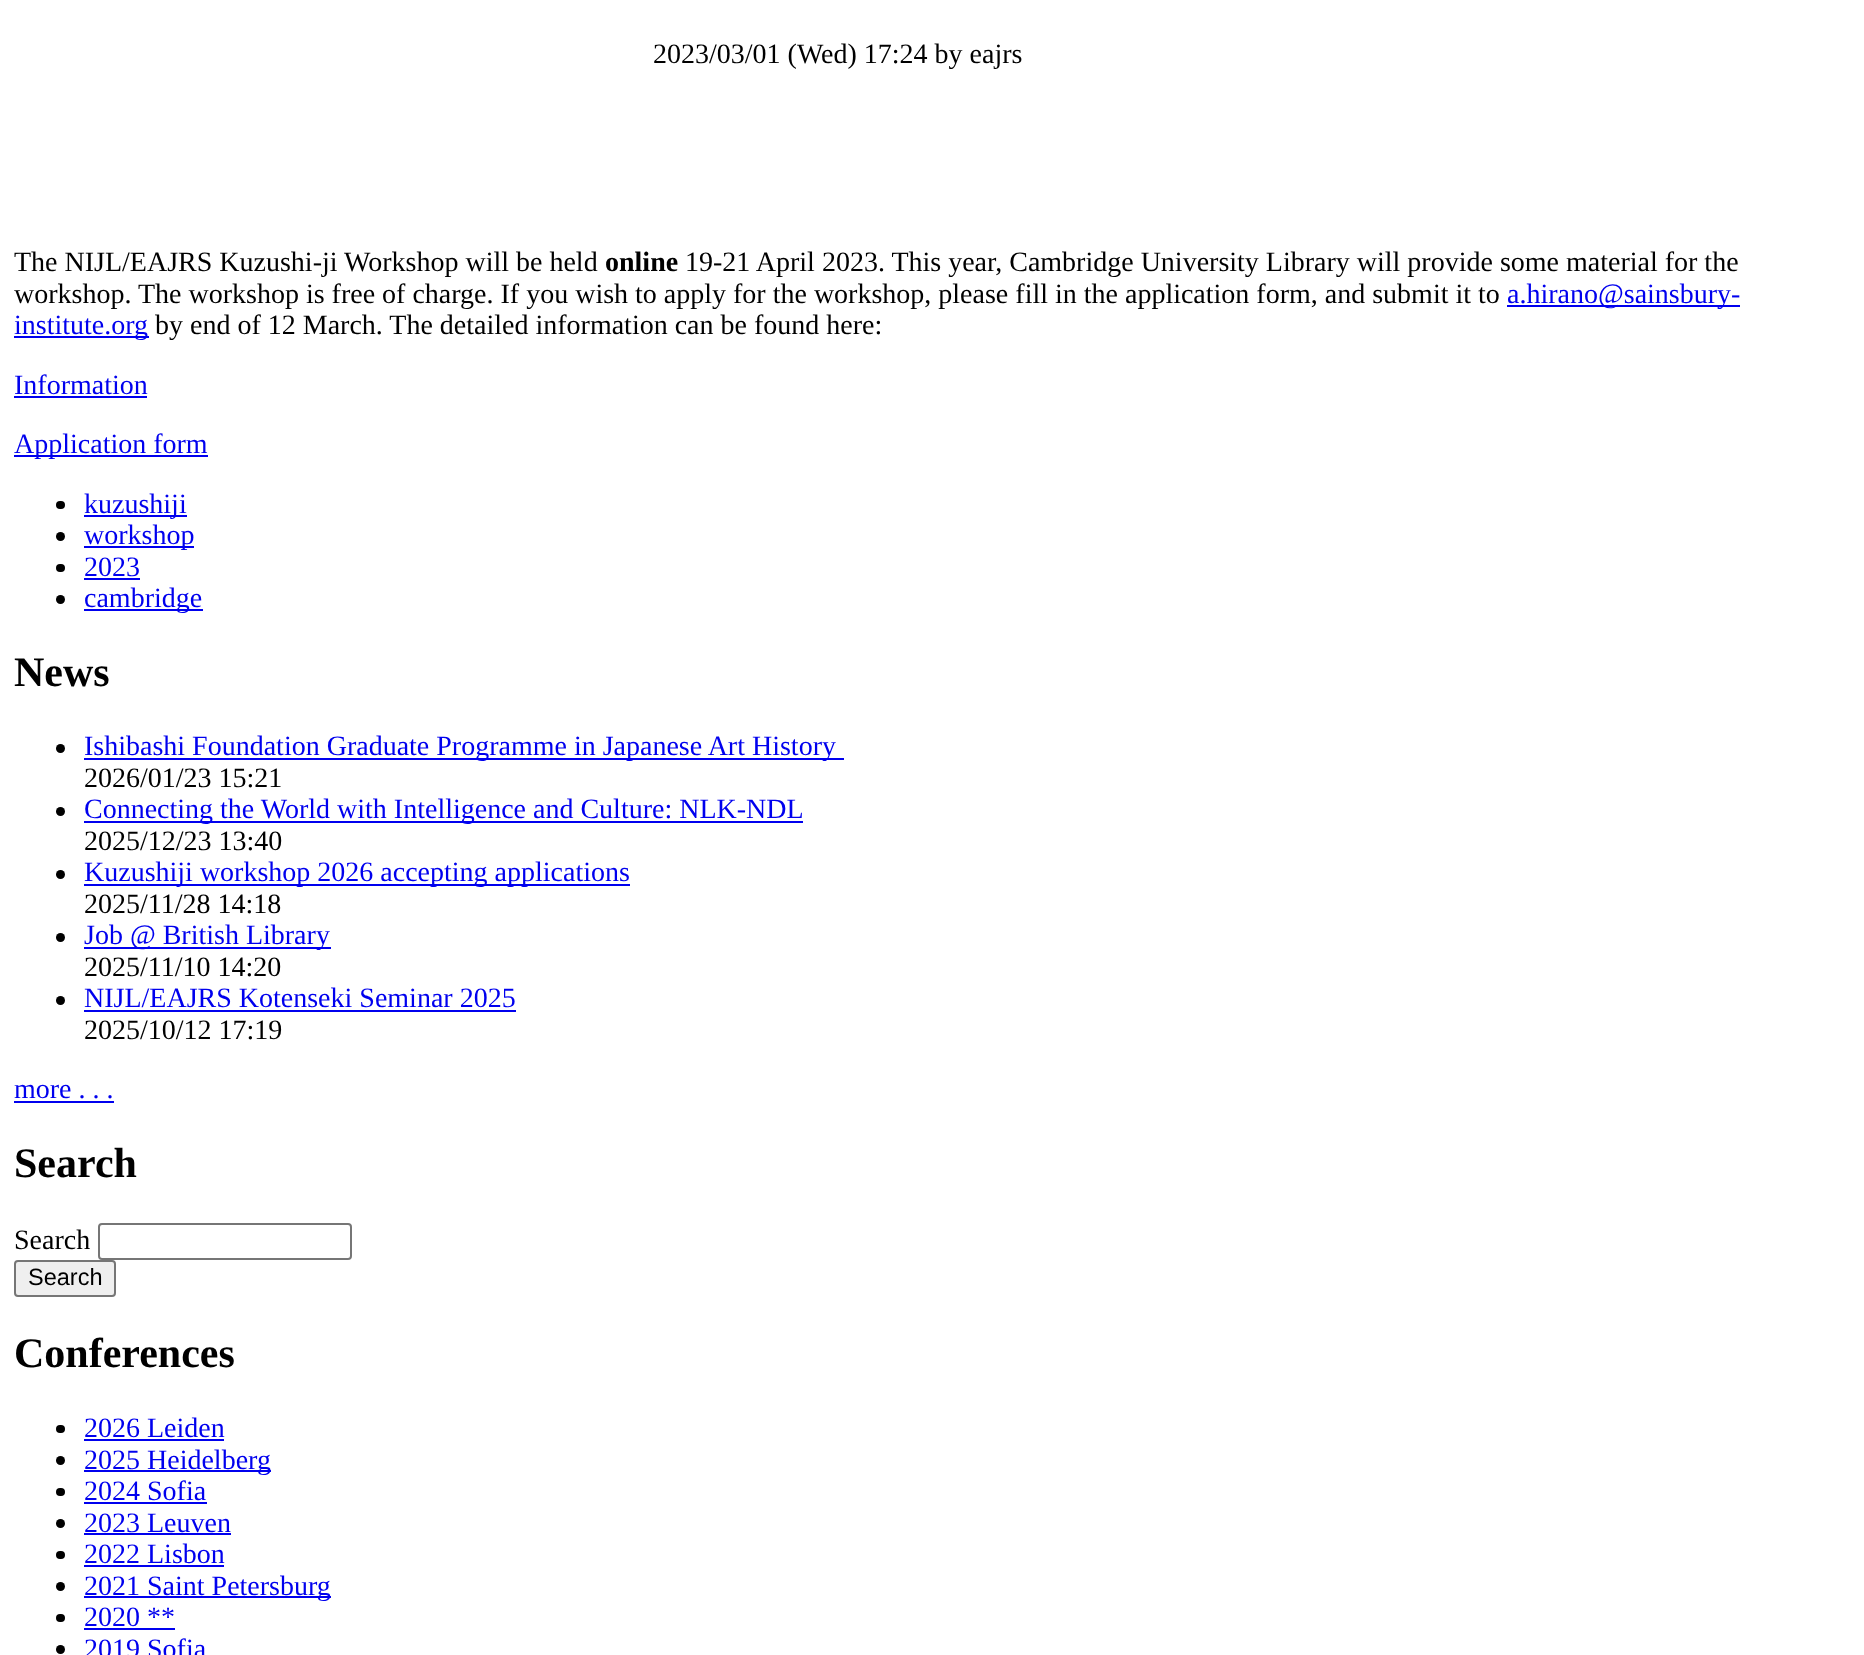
<svg xmlns="http://www.w3.org/2000/svg" width="1864" height="1655" viewBox="0 0 1864 1655">
  <rect width="100%" height="100%" fill="rgb(255,255,255)"/>
  <g font-family="Liberation Serif" font-size="28" fill="rgb(0,0,0)">
    <text x="653" y="63">2023/03/01 (Wed) 17:24 by eajrs</text>
    <text x="14" y="271">The NIJL/EAJRS Kuzushi-ji Workshop will be held</text>
  </g>
  <text x="605" y="271" font-family="Liberation Serif" font-size="28" font-weight="bold" fill="rgb(0,0,0)">online</text>
  <g font-family="Liberation Serif" font-size="28" fill="rgb(0,0,0)">
    <text x="685" y="271">19-21 April 2023. This year, Cambridge University Library will provide some material for the</text>
    <text x="14" y="303">workshop. The workshop is free of charge. If you wish to apply for the workshop, please fill in the application form, and submit it to</text>
  </g>
  <rect x="1507" y="305" width="233" height="2" fill="rgb(0,0,238)"/>
  <text x="1507" y="303" font-family="Liberation Serif" font-size="28" fill="rgb(0,0,238)">a.hirano@sainsbury-</text>
  <rect x="14" y="336" width="135" height="2" fill="rgb(0,0,238)"/>
  <text x="14" y="334" font-family="Liberation Serif" font-size="28" fill="rgb(0,0,238)">institute.org</text>
  <text x="155" y="334" font-family="Liberation Serif" font-size="28" fill="rgb(0,0,0)">by end of 12 March. The detailed information can be found here:</text>
  <text x="14" y="394" font-family="Liberation Serif" font-size="28" fill="rgb(0,0,238)">Information</text>
  <rect x="14" y="396" width="133" height="2" fill="rgb(0,0,238)"/>
  <rect x="14" y="455" width="194" height="2" fill="rgb(0,0,238)"/>
  <text x="14" y="453" font-family="Liberation Serif" font-size="28" fill="rgb(0,0,238)">Application form</text>
  <rect x="56" y="501" width="9" height="8" rx="4" fill="rgb(0,0,0)"/>
  <rect x="84" y="515" width="103" height="2" fill="rgb(0,0,238)"/>
  <text x="84" y="513" font-family="Liberation Serif" font-size="28" fill="rgb(0,0,238)">kuzushiji</text>
  <circle cx="60.5" cy="536.5" r="4.5" fill="rgb(0,0,0)"/>
  <rect x="84" y="546" width="110" height="2" fill="rgb(0,0,238)"/>
  <text x="84" y="544" font-family="Liberation Serif" font-size="28" fill="rgb(0,0,238)">workshop</text>
  <rect x="56" y="564" width="9" height="8" rx="4" fill="rgb(0,0,0)"/>
  <text x="84" y="576" font-family="Liberation Serif" font-size="28" fill="rgb(0,0,238)">2023</text>
  <rect x="84" y="578" width="56" height="2" fill="rgb(0,0,238)"/>
  <circle cx="60.5" cy="599.5" r="4.5" fill="rgb(0,0,0)"/>
  <rect x="84" y="609" width="119" height="2" fill="rgb(0,0,238)"/>
  <text x="84" y="607" font-family="Liberation Serif" font-size="28" fill="rgb(0,0,238)">cambridge</text>
  <text x="14" y="686" font-family="Liberation Serif" font-size="42" font-weight="bold" fill="rgb(0,0,0)">News</text>
  <circle cx="60.5" cy="748.5" r="4.5" fill="rgb(0,0,0)"/>
  <rect x="84" y="758" width="760" height="2" fill="rgb(0,0,238)"/>
  <text x="84" y="755" font-family="Liberation Serif" font-size="28" fill="rgb(0,0,238)">Ishibashi Foundation Graduate Programme in Japanese Art History</text>
  <text x="84" y="787" font-family="Liberation Serif" font-size="28" fill="rgb(0,0,0)">2026/01/23 15:21</text>
  <circle cx="60.5" cy="811.5" r="4.5" fill="rgb(0,0,0)"/>
  <rect x="84" y="821" width="719" height="2" fill="rgb(0,0,238)"/>
  <text x="84" y="818" font-family="Liberation Serif" font-size="28" fill="rgb(0,0,238)">Connecting the World with Intelligence and Culture: NLK-NDL</text>
  <text x="84" y="850" font-family="Liberation Serif" font-size="28" fill="rgb(0,0,0)">2025/12/23 13:40</text>
  <circle cx="60.5" cy="874.5" r="4.5" fill="rgb(0,0,0)"/>
  <rect x="84" y="884" width="546" height="2" fill="rgb(0,0,238)"/>
  <text x="84" y="881" font-family="Liberation Serif" font-size="28" fill="rgb(0,0,238)">Kuzushiji workshop 2026 accepting applications</text>
  <text x="84" y="913" font-family="Liberation Serif" font-size="28" fill="rgb(0,0,0)">2025/11/28 14:18</text>
  <circle cx="60.5" cy="937.5" r="4.5" fill="rgb(0,0,0)"/>
  <rect x="84" y="947" width="247" height="2" fill="rgb(0,0,238)"/>
  <text x="84" y="944" font-family="Liberation Serif" font-size="28" fill="rgb(0,0,238)">Job @ British Library</text>
  <text x="84" y="976" font-family="Liberation Serif" font-size="28" fill="rgb(0,0,0)">2025/11/10 14:20</text>
  <circle cx="60.5" cy="1000.5" r="4.5" fill="rgb(0,0,0)"/>
  <text x="84" y="1007" font-family="Liberation Serif" font-size="28" fill="rgb(0,0,238)">NIJL/EAJRS Kotenseki Seminar 2025</text>
  <rect x="84" y="1010" width="432" height="2" fill="rgb(0,0,238)"/>
  <text x="84" y="1039" font-family="Liberation Serif" font-size="28" fill="rgb(0,0,0)">2025/10/12 17:19</text>
  <text x="14" y="1098" font-family="Liberation Serif" font-size="28" fill="rgb(0,0,238)">more . . .</text>
  <rect x="14" y="1101" width="100" height="2" fill="rgb(0,0,238)"/>
  <text x="14" y="1177" font-family="Liberation Serif" font-size="42" font-weight="bold" fill="rgb(0,0,0)">Search</text>
  <text x="14" y="1249" font-family="Liberation Serif" font-size="28" fill="rgb(0,0,0)">Search</text>
  <rect x="99" y="1224" width="252" height="35" rx="3" fill="none" stroke="rgb(118,118,118)" stroke-width="2"/>
  <rect x="15" y="1261" width="100" height="35" rx="3" fill="rgb(239,239,239)" stroke="rgb(118,118,118)" stroke-width="2"/>
  <text x="28" y="1285" font-family="Liberation Sans" font-size="23.5" fill="rgb(0,0,0)">Search</text>
  <text x="14" y="1367" font-family="Liberation Serif" font-size="42" font-weight="bold" fill="rgb(0,0,0)">Conferences</text>
  <rect x="56" y="1425" width="9" height="8" rx="4" fill="rgb(0,0,0)"/>
  <text x="84" y="1437" font-family="Liberation Serif" font-size="28" fill="rgb(0,0,238)">2026 Leiden</text>
  <rect x="84" y="1439" width="140" height="2" fill="rgb(0,0,238)"/>
  <circle cx="60.5" cy="1460.5" r="4.5" fill="rgb(0,0,0)"/>
  <rect x="84" y="1470" width="187" height="2" fill="rgb(0,0,238)"/>
  <text x="84" y="1469" font-family="Liberation Serif" font-size="28" fill="rgb(0,0,238)">2025 Heidelberg</text>
  <rect x="56" y="1488" width="9" height="8" rx="4" fill="rgb(0,0,0)"/>
  <text x="84" y="1500" font-family="Liberation Serif" font-size="28" fill="rgb(0,0,238)">2024 Sofia</text>
  <rect x="84" y="1502" width="123" height="2" fill="rgb(0,0,238)"/>
  <circle cx="60.5" cy="1523.5" r="4.5" fill="rgb(0,0,0)"/>
  <text x="84" y="1532" font-family="Liberation Serif" font-size="28" fill="rgb(0,0,238)">2023 Leuven</text>
  <rect x="84" y="1533" width="147" height="2" fill="rgb(0,0,238)"/>
  <rect x="56" y="1551" width="9" height="8" rx="4" fill="rgb(0,0,0)"/>
  <text x="84" y="1563" font-family="Liberation Serif" font-size="28" fill="rgb(0,0,238)">2022 Lisbon</text>
  <rect x="84" y="1565" width="140" height="2" fill="rgb(0,0,238)"/>
  <circle cx="60.5" cy="1586.5" r="4.5" fill="rgb(0,0,0)"/>
  <rect x="84" y="1596" width="247" height="2" fill="rgb(0,0,238)"/>
  <text x="84" y="1595" font-family="Liberation Serif" font-size="28" fill="rgb(0,0,238)">2021 Saint Petersburg</text>
  <rect x="56" y="1614" width="9" height="8" rx="4" fill="rgb(0,0,0)"/>
  <text x="84" y="1626" font-family="Liberation Serif" font-size="28" fill="rgb(0,0,238)">2020 **</text>
  <rect x="84" y="1628" width="91" height="2" fill="rgb(0,0,238)"/>
  <circle cx="60.5" cy="1649.5" r="4.5" fill="rgb(0,0,0)"/>
  <text x="84" y="1658" font-family="Liberation Serif" font-size="28" fill="rgb(0,0,238)">2019 Sofia</text>
</svg>
